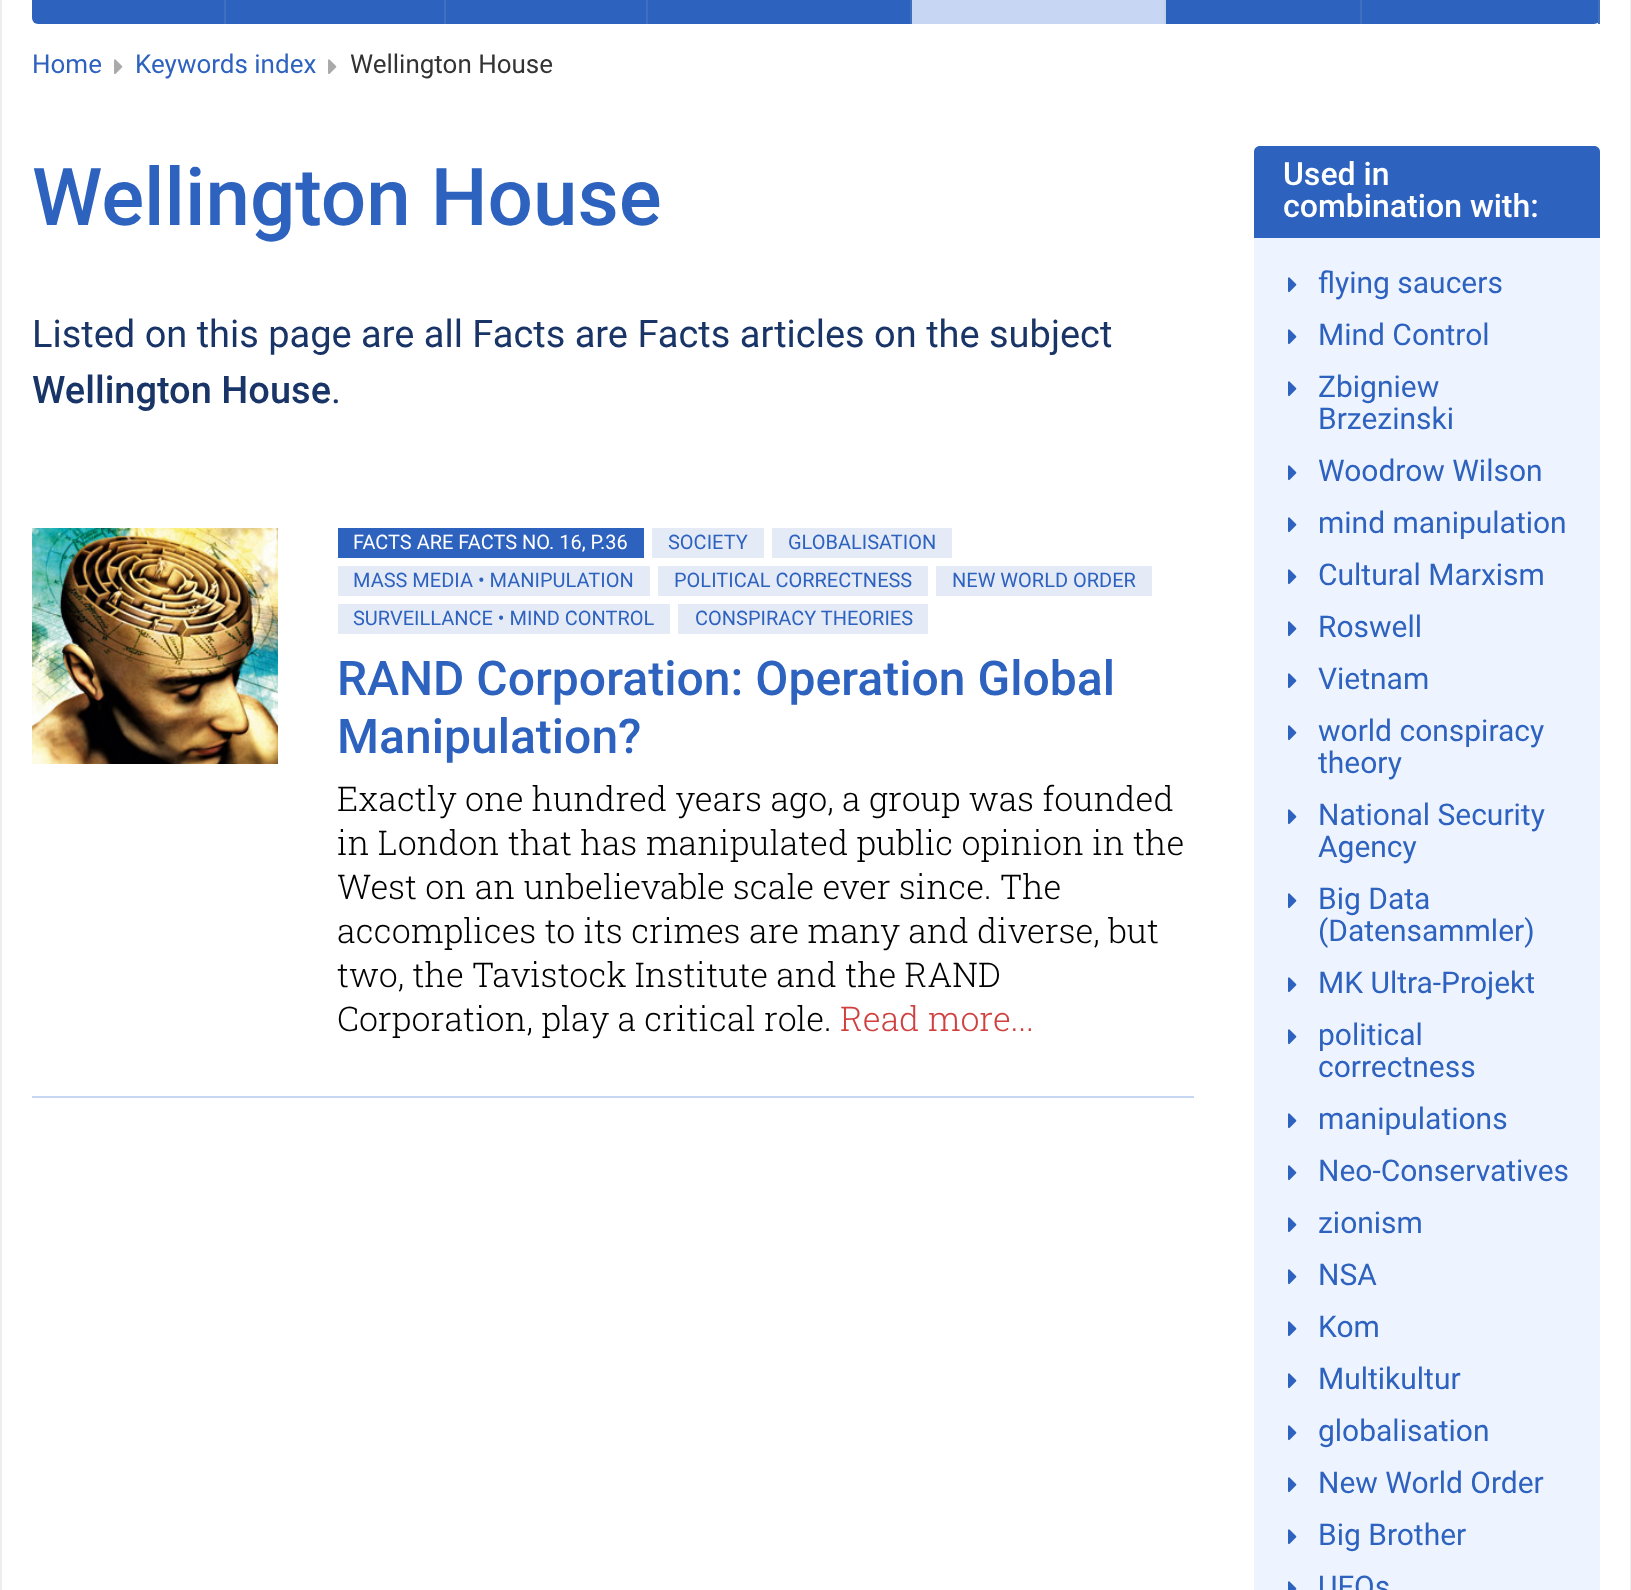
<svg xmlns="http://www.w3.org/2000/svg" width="1631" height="1590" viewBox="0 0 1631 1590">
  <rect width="100%" height="100%" fill="rgb(255,255,255)"/>
  <rect x="1630" y="0" width="1" height="1590" fill="rgb(238,238,238)"/>
  <rect x="0" y="0" width="2" height="1590" fill="rgb(238,238,238)"/>
  <rect x="32" y="-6" width="1568" height="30" rx="6" fill="rgb(46,98,191)"/>
  <rect x="224" y="0" width="2" height="24" fill="rgb(65,111,191)"/>
  <rect x="444" y="0" width="2" height="24" fill="rgb(65,111,191)"/>
  <rect x="646" y="0" width="2" height="24" fill="rgb(65,111,191)"/>
  <rect x="910" y="0" width="2" height="24" fill="rgb(65,111,191)"/>
  <rect x="912" y="0" width="252" height="24" fill="rgb(199,214,242)"/>
  <rect x="1164" y="0" width="2" height="24" fill="rgb(189,211,226)"/>
  <rect x="1360" y="0" width="2" height="24" fill="rgb(65,111,191)"/>
  <rect x="1598" y="0" width="2" height="24" fill="rgb(65,111,191)"/>
  <text x="32" y="73" font-family="Roboto" font-size="26" fill="rgb(46,98,191)">Home</text>
  <image x="114" y="59" width="9" height="15" href="pic1.png"/>
  <text x="135" y="73" font-family="Roboto" font-size="26" fill="rgb(46,98,191)">Keywords index</text>
  <image x="328" y="59" width="9" height="15" href="pic1.png"/>
  <text x="350" y="73" font-family="Roboto" font-size="26" fill="rgb(51,51,51)">Wellington House</text>
  <text x="32" y="225" font-family="Roboto" font-size="80" font-weight="500" fill="rgb(46,98,191)">Wellington House</text>
  <text x="32" y="347" font-family="Roboto" font-size="38" fill="rgb(25,52,102)">Listed on this page are all Facts are Facts articles on the subject</text>
  <text x="32" y="403" font-family="Roboto" font-size="38" font-weight="500" fill="rgb(25,52,102)">Wellington House</text>
  <text x="331" y="403" font-family="Roboto" font-size="38" fill="rgb(25,52,102)">.</text>
  <rect x="32" y="1096" width="1162" height="2" fill="rgb(199,214,242)"/>
  <image x="32" y="528" width="246" height="236" href="pic2.png"/>
  <rect x="338" y="528" width="306" height="30" fill="rgb(46,98,191)"/>
  <text x="353" y="549" font-family="Roboto" font-size="20" fill="rgb(255,255,255)">FACTS ARE FACTS NO. 16, P.36</text>
  <rect x="652" y="528" width="112" height="30" fill="rgb(228,235,247)"/>
  <text x="668" y="549" font-family="Roboto" font-size="20" fill="rgb(46,98,191)">SOCIETY</text>
  <rect x="772" y="528" width="180" height="30" fill="rgb(228,235,247)"/>
  <text x="788" y="549" font-family="Roboto" font-size="20" fill="rgb(46,98,191)">GLOBALISATION</text>
  <rect x="338" y="566" width="312" height="30" fill="rgb(228,235,247)"/>
  <text x="353" y="587" font-family="Roboto" font-size="20" fill="rgb(46,98,191)">MASS MEDIA • MANIPULATION</text>
  <rect x="658" y="566" width="270" height="30" fill="rgb(228,235,247)"/>
  <text x="674" y="587" font-family="Roboto" font-size="20" fill="rgb(46,98,191)">POLITICAL CORRECTNESS</text>
  <rect x="936" y="566" width="216" height="30" fill="rgb(228,235,247)"/>
  <text x="952" y="587" font-family="Roboto" font-size="20" fill="rgb(46,98,191)">NEW WORLD ORDER</text>
  <rect x="338" y="604" width="332" height="30" fill="rgb(228,235,247)"/>
  <text x="353" y="625" font-family="Roboto" font-size="20" fill="rgb(46,98,191)">SURVEILLANCE • MIND CONTROL</text>
  <rect x="678" y="604" width="250" height="30" fill="rgb(228,235,247)"/>
  <text x="695" y="625" font-family="Roboto" font-size="20" fill="rgb(46,98,191)">CONSPIRACY THEORIES</text>
  <g font-family="Roboto" font-size="48" font-weight="500" fill="rgb(46,98,191)">
    <text>
      <tspan x="337" y="695">RAND Corporation: Operation Global</tspan>
      <tspan x="337" y="753">Manipulation?</tspan>
    </text>
  </g>
  <g font-family="Roboto Slab" font-size="34" font-weight="300" fill="rgb(0,0,0)">
    <text>
      <tspan x="337" y="811">Exactly one hundred years ago, a group was founded</tspan>
      <tspan x="337" y="855">in London that has manipulated public opinion in the</tspan>
      <tspan x="337" y="899">West on an unbelievable scale ever since. The</tspan>
      <tspan x="337" y="943">accomplices to its crimes are many and diverse, but</tspan>
      <tspan x="337" y="987">two, the Tavistock Institute and the RAND</tspan>
      <tspan x="337" y="1031">Corporation, play a critical role.</tspan>
    </text>
  </g>
  <text x="840" y="1031" font-family="Roboto Slab" font-size="34" font-weight="300" fill="rgb(207,64,62)">Read more...</text>
  <path d="M1260 146H1594C1597.5 146 1600 148.5 1600 152V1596H1254V152C1254 148.5 1256.5 146 1260 146Z" fill="rgb(237,243,255)"/>
  <path d="M1260 146H1594C1597.5 146 1600 148.5 1600 152V234H1254V152C1254 148.5 1256.5 146 1260 146Z" fill="rgb(46,98,191)"/>
  <g font-family="Roboto" font-size="32" font-weight="500" fill="rgb(255,255,255)">
    <text>
      <tspan x="1283" y="185">Used in</tspan>
      <tspan x="1283" y="217">combination with:</tspan>
    </text>
  </g>
  <rect x="1254" y="234" width="346" height="4" fill="rgb(46,98,191)"/>
  <image x="1288" y="277" width="9" height="16" href="pic3.png"/>
  <text x="1318" y="293" font-family="Roboto" font-size="30" fill="rgb(46,98,191)">flying saucers</text>
  <image x="1288" y="329" width="9" height="16" href="pic3.png"/>
  <text x="1318" y="345" font-family="Roboto" font-size="30" fill="rgb(46,98,191)">Mind Control</text>
  <image x="1288" y="381" width="9" height="16" href="pic3.png"/>
  <g font-family="Roboto" font-size="30" fill="rgb(46,98,191)">
    <text>
      <tspan x="1318" y="397">Zbigniew</tspan>
      <tspan x="1318" y="429">Brzezinski</tspan>
    </text>
  </g>
  <image x="1288" y="465" width="9" height="16" href="pic3.png"/>
  <text x="1318" y="481" font-family="Roboto" font-size="30" fill="rgb(46,98,191)">Woodrow Wilson</text>
  <image x="1288" y="517" width="9" height="16" href="pic3.png"/>
  <text x="1318" y="533" font-family="Roboto" font-size="30" fill="rgb(46,98,191)">mind manipulation</text>
  <image x="1288" y="569" width="9" height="16" href="pic3.png"/>
  <text x="1318" y="585" font-family="Roboto" font-size="30" fill="rgb(46,98,191)">Cultural Marxism</text>
  <image x="1288" y="621" width="9" height="16" href="pic3.png"/>
  <text x="1318" y="637" font-family="Roboto" font-size="30" fill="rgb(46,98,191)">Roswell</text>
  <image x="1288" y="673" width="9" height="16" href="pic3.png"/>
  <text x="1318" y="689" font-family="Roboto" font-size="30" fill="rgb(46,98,191)">Vietnam</text>
  <image x="1288" y="725" width="9" height="16" href="pic3.png"/>
  <g font-family="Roboto" font-size="30" fill="rgb(46,98,191)">
    <text>
      <tspan x="1318" y="741">world conspiracy</tspan>
      <tspan x="1318" y="773">theory</tspan>
    </text>
  </g>
  <image x="1288" y="809" width="9" height="16" href="pic3.png"/>
  <g font-family="Roboto" font-size="30" fill="rgb(46,98,191)">
    <text>
      <tspan x="1318" y="825">National Security</tspan>
      <tspan x="1318" y="857">Agency</tspan>
    </text>
  </g>
  <image x="1288" y="893" width="9" height="16" href="pic3.png"/>
  <g font-family="Roboto" font-size="30" fill="rgb(46,98,191)">
    <text>
      <tspan x="1318" y="909">Big Data</tspan>
      <tspan x="1318" y="941">(Datensammler)</tspan>
    </text>
  </g>
  <image x="1288" y="977" width="9" height="16" href="pic3.png"/>
  <text x="1318" y="993" font-family="Roboto" font-size="30" fill="rgb(46,98,191)">MK Ultra-Projekt</text>
  <image x="1288" y="1029" width="9" height="16" href="pic3.png"/>
  <g font-family="Roboto" font-size="30" fill="rgb(46,98,191)">
    <text>
      <tspan x="1318" y="1045">political</tspan>
      <tspan x="1318" y="1077">correctness</tspan>
    </text>
  </g>
  <image x="1288" y="1113" width="9" height="16" href="pic3.png"/>
  <text x="1318" y="1129" font-family="Roboto" font-size="30" fill="rgb(46,98,191)">manipulations</text>
  <image x="1288" y="1165" width="9" height="16" href="pic3.png"/>
  <text x="1318" y="1181" font-family="Roboto" font-size="30" fill="rgb(46,98,191)">Neo-Conservatives</text>
  <image x="1288" y="1217" width="9" height="16" href="pic3.png"/>
  <text x="1318" y="1233" font-family="Roboto" font-size="30" fill="rgb(46,98,191)">zionism</text>
  <image x="1288" y="1269" width="9" height="16" href="pic3.png"/>
  <text x="1318" y="1285" font-family="Roboto" font-size="30" fill="rgb(46,98,191)">NSA</text>
  <image x="1288" y="1321" width="9" height="16" href="pic3.png"/>
  <text x="1318" y="1337" font-family="Roboto" font-size="30" fill="rgb(46,98,191)">Kom</text>
  <image x="1288" y="1373" width="9" height="16" href="pic3.png"/>
  <text x="1318" y="1389" font-family="Roboto" font-size="30" fill="rgb(46,98,191)">Multikultur</text>
  <image x="1288" y="1425" width="9" height="16" href="pic3.png"/>
  <text x="1318" y="1441" font-family="Roboto" font-size="30" fill="rgb(46,98,191)">globalisation</text>
  <image x="1288" y="1477" width="9" height="16" href="pic3.png"/>
  <text x="1318" y="1493" font-family="Roboto" font-size="30" fill="rgb(46,98,191)">New World Order</text>
  <image x="1288" y="1529" width="9" height="16" href="pic3.png"/>
  <text x="1318" y="1545" font-family="Roboto" font-size="30" fill="rgb(46,98,191)">Big Brother</text>
  <image x="1288" y="1581" width="9" height="9" href="pic4.png"/>
  <text x="1318" y="1597" font-family="Roboto" font-size="30" fill="rgb(46,98,191)">UFOs</text>
</svg>
